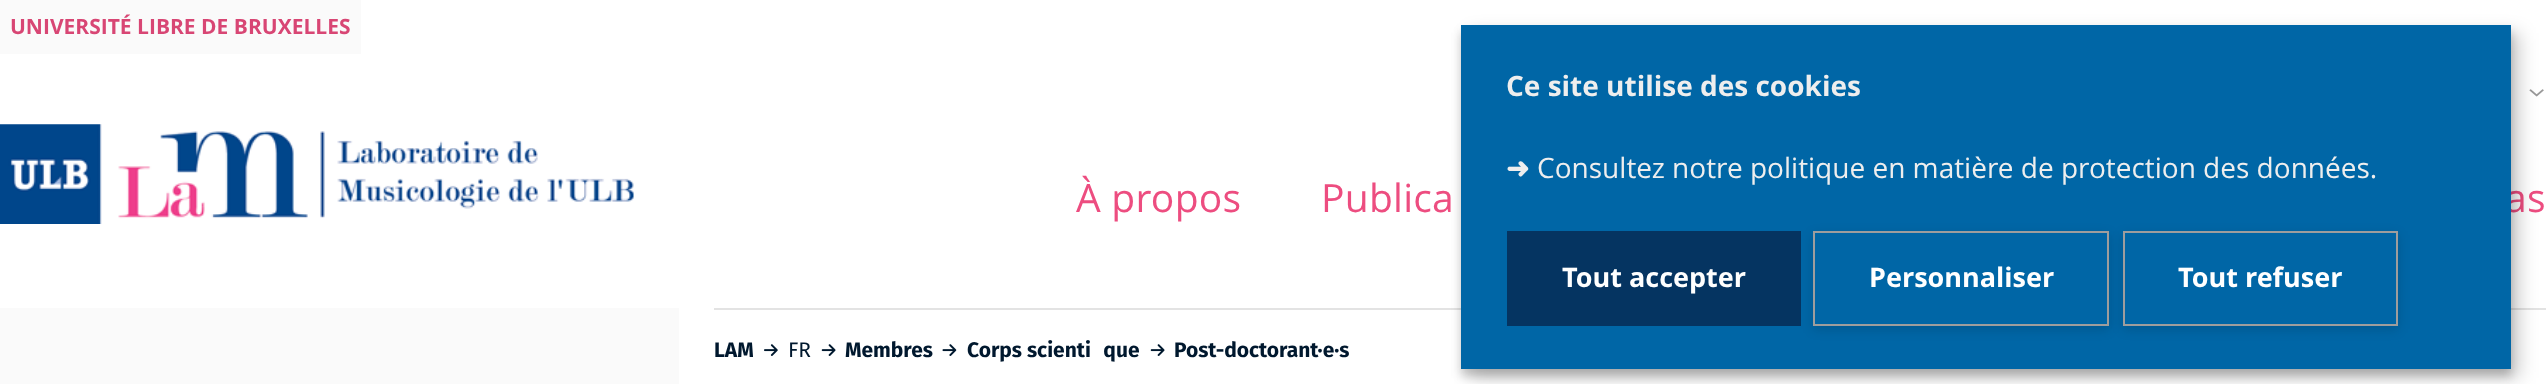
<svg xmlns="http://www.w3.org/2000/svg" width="2546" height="384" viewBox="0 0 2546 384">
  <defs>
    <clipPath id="clip1"><path d="M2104 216H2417V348H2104ZM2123 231H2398V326H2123Z" clip-rule="evenodd"/></clipPath>
    <clipPath id="clip2"><path d="M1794 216H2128V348H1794ZM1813 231H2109V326H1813Z" clip-rule="evenodd"/></clipPath>
  </defs>
  <rect width="100%" height="100%" fill="rgb(255,255,255)"/>
  <rect x="0" y="0" width="361" height="54" fill="rgb(250,250,250)"/>
  <text x="10" y="34" font-family="Open Sans" font-size="21" font-weight="bold" fill="rgb(216,70,116)">UNIVERSITÉ LIBRE DE BRUXELLES</text>
  <image x="2529" y="89" width="15" height="8" href="pic1.png"/>
  <image x="0" y="124" width="634" height="100" href="pic2.png"/>
  <g font-family="Open Sans" font-size="39" letter-spacing="0.25" fill="rgb(237,77,128)">
    <text x="1076" y="212">À propos</text>
    <text x="1321" y="212">Publica</text>
    <text x="2505" y="212">as</text>
  </g>
  <rect x="714" y="308" width="1832" height="2" fill="rgb(227,227,227)"/>
  <rect x="1470" y="33" width="1050" height="345" fill="rgba(0,0,0,0.19)" filter="blur(9px)"/>
  <rect x="1461" y="32" width="1050" height="344" fill="rgba(0,0,0,0.2)" filter="blur(5px)"/>
  <rect x="1461" y="25" width="1050" height="344" fill="rgb(0,102,166)"/>
  <text x="1506" y="96" font-family="Open Sans" font-size="28" font-weight="bold" fill="rgb(238,238,238)">Ce site utilise des cookies</text>
  <text x="1506" y="178" font-family="DejaVu Sans" font-size="28" font-weight="bold" fill="rgb(238,238,238)">➜</text>
  <text x="1537" y="178" font-family="Open Sans" font-size="28" fill="rgb(238,238,238)">Consultez notre politique en matière de protection des données.</text>
  <rect x="1507" y="231" width="294" height="95" fill="rgb(5,52,97)"/>
  <text x="1562" y="287" font-family="Open Sans" font-size="27" font-weight="bold" fill="rgb(255,255,255)">Tout accepter</text>
  <g clip-path="url(#clip1)">
    <rect x="2123" y="235" width="275" height="94" fill="rgba(0,0,0,0.15)" filter="blur(6px)"/>
  </g>
  <rect x="2124" y="232" width="273" height="93" fill="none" stroke="rgb(158,157,157)" stroke-width="2"/>
  <g clip-path="url(#clip2)">
    <rect x="1813" y="235" width="296" height="94" fill="rgba(0,0,0,0.15)" filter="blur(6px)"/>
  </g>
  <rect x="1814" y="232" width="294" height="93" fill="none" stroke="rgb(158,157,157)" stroke-width="2"/>
  <g font-family="Open Sans" font-size="27" font-weight="bold" fill="rgb(255,255,255)">
    <text x="1869" y="287">Personnaliser</text>
    <text x="2178" y="287">Tout refuser</text>
  </g>
  <rect x="0" y="308" width="679" height="76" fill="rgb(250,250,250)"/>
  <text x="714" y="357" font-family="Fira Sans" font-size="21" font-weight="bold" fill="rgb(0,24,46)">LAM</text>
  <image x="764" y="344" width="14" height="12" href="pic3.png"/>
  <text x="788" y="357" font-family="Fira Sans" font-size="21" fill="rgb(0,24,46)">FR</text>
  <image x="821" y="344" width="15" height="12" href="pic4.png"/>
  <text x="845" y="357" font-family="Fira Sans" font-size="21" font-weight="bold" fill="rgb(0,24,46)">Membres</text>
  <image x="942" y="344" width="15" height="12" href="pic5.png"/>
  <text x="967" y="357" font-family="Fira Sans" font-size="21" font-weight="bold" fill="rgb(0,24,46)">Corps scientifique</text>
  <image x="1150" y="344" width="15" height="12" href="pic4.png"/>
  <text x="1174" y="357" font-family="Fira Sans" font-size="21" font-weight="bold" fill="rgb(0,24,46)">Post-doctorant·e·s</text>
</svg>
